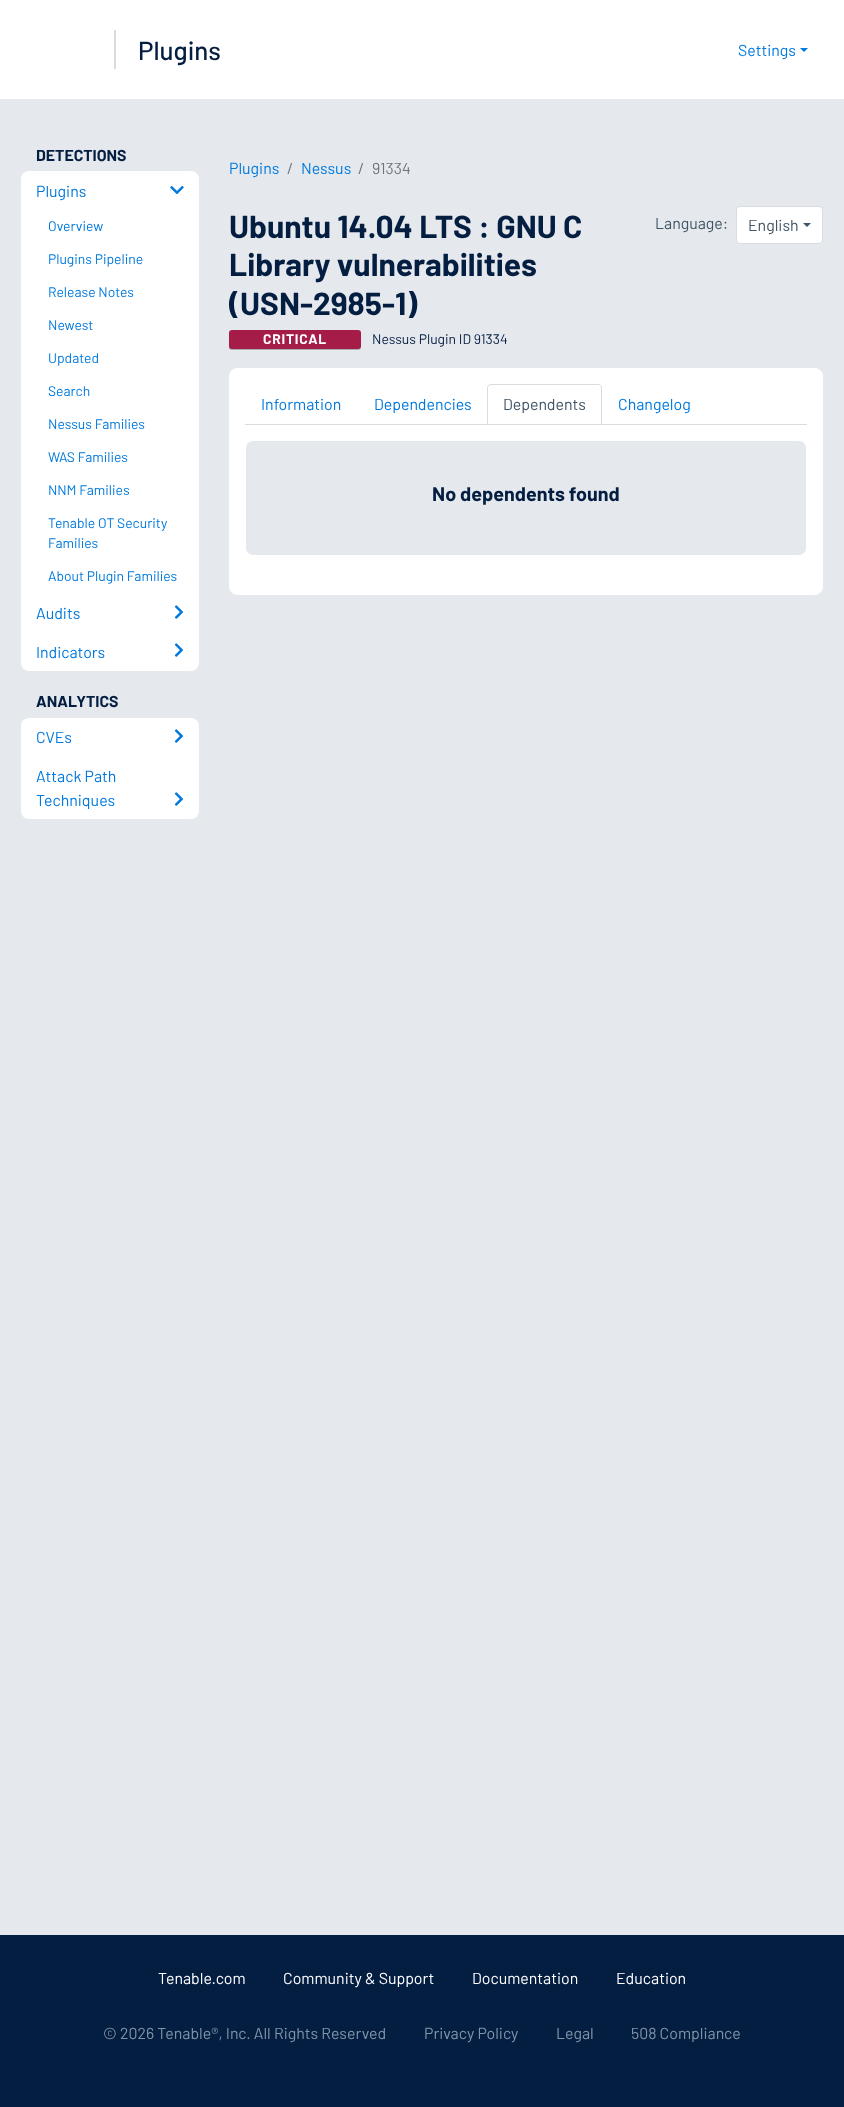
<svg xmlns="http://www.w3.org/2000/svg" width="844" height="2107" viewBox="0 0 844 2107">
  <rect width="100%" height="100%" fill="rgb(255,255,255)"/>
  <rect x="114" y="30" width="2" height="39" fill="rgb(217,219,224)"/>
  <text x="138" y="60" font-family="Barlow" font-size="26" font-weight="500" fill="rgb(4,30,66)">Plugins</text>
  <text x="738" y="56" font-family="Barlow" font-size="15.9" fill="rgb(0,121,221)">Settings</text>
  <path d="M800 48H808L804 52Z" fill="rgb(0,121,221)"/>
  <rect x="0" y="99" width="844" height="1836" fill="rgb(229,233,237)"/>
  <text x="36" y="161" font-family="Barlow" font-size="15.9" font-weight="bold" fill="rgb(4,30,66)">DETECTIONS</text>
  <rect x="21" y="171" width="178" height="500" rx="8" fill="rgb(255,255,255)"/>
  <text x="36" y="197" font-family="Barlow" font-size="15.9" fill="rgb(0,121,221)">Plugins</text>
  <image x="170" y="186" width="14" height="9" href="pic1.png"/>
  <g font-family="Barlow" font-size="13.9" fill="rgb(0,121,221)">
    <text x="48" y="231">Overview</text>
    <text x="48" y="264">Plugins Pipeline</text>
    <text x="48" y="297">Release Notes</text>
    <text x="48" y="330">Newest</text>
    <text x="48" y="363">Updated</text>
    <text x="48" y="396">Search</text>
    <text x="48" y="429">Nessus Families</text>
    <text x="48" y="462">WAS Families</text>
    <text x="48" y="495">NNM Families</text>
    <text>
      <tspan x="48" y="528">Tenable OT Security</tspan>
      <tspan x="48" y="548">Families</tspan>
    </text>
    <text x="48" y="581">About Plugin Families</text>
  </g>
  <text x="36" y="619" font-family="Barlow" font-size="15.9" fill="rgb(0,121,221)">Audits</text>
  <image x="174" y="605" width="9" height="14" href="pic2.png"/>
  <text x="36" y="658" font-family="Barlow" font-size="15.9" fill="rgb(0,121,221)">Indicators</text>
  <image x="174" y="643" width="9" height="14" href="pic2.png"/>
  <text x="36" y="707" font-family="Barlow" font-size="15.9" font-weight="bold" fill="rgb(4,30,66)">ANALYTICS</text>
  <rect x="21" y="718" width="178" height="101" rx="8" fill="rgb(255,255,255)"/>
  <text x="36" y="743" font-family="Barlow" font-size="15.9" fill="rgb(0,121,221)">CVEs</text>
  <image x="174" y="729" width="9" height="14" href="pic2.png"/>
  <g font-family="Barlow" font-size="15.9" fill="rgb(0,121,221)">
    <text>
      <tspan x="36" y="782">Attack Path</tspan>
      <tspan x="36" y="806">Techniques</tspan>
    </text>
  </g>
  <image x="174" y="792" width="9" height="14" href="pic2.png"/>
  <text x="229" y="174" font-family="Barlow" font-size="15.9" fill="rgb(0,121,221)">Plugins</text>
  <text x="287" y="174" font-family="Barlow" font-size="15.9" fill="rgb(108,117,125)">/</text>
  <text x="301" y="174" font-family="Barlow" font-size="15.9" fill="rgb(0,121,221)">Nessus</text>
  <g font-family="Barlow" font-size="15.9" fill="rgb(108,117,125)">
    <text x="358" y="174">/</text>
    <text x="372" y="174">91334</text>
  </g>
  <g font-family="Barlow" font-size="31.75" font-weight="bold" fill="rgb(4,30,66)">
    <text>
      <tspan x="229" y="238">Ubuntu 14.04 LTS : GNU C</tspan>
      <tspan x="229" y="276">Library vulnerabilities</tspan>
      <tspan x="229" y="315">(USN-2985-1)</tspan>
    </text>
  </g>
  <rect x="229" y="331" width="132" height="19" rx="3" fill="rgba(0,0,0,0.25)" filter="blur(0.5px)"/>
  <rect x="229" y="330" width="132" height="19" rx="3" fill="rgb(165,28,73)"/>
  <text x="263" y="344" font-family="Barlow" font-size="13.9" font-weight="bold" letter-spacing="0.75" fill="rgb(255,255,255)">CRITICAL</text>
  <text x="372" y="344" font-family="Barlow" font-size="13.9" fill="rgb(4,30,66)">Nessus Plugin ID 91334</text>
  <text x="655" y="229" font-family="Barlow" font-size="15.9" fill="rgb(65,84,101)">Language:</text>
  <rect x="736.5" y="206.5" width="86" height="37" rx="3.5" fill="rgb(255,255,255)" stroke="rgb(217,219,224)"/>
  <text x="748" y="231" font-family="Barlow" font-size="15.9" fill="rgb(65,84,101)">English</text>
  <path d="M803 223H811L807 227Z" fill="rgb(65,84,101)"/>
  <rect x="229.5" y="368.5" width="593" height="226" rx="7.5" fill="rgb(255,255,255)" stroke="rgb(255,255,255)"/>
  <rect x="245" y="424" width="562" height="1" fill="rgb(217,219,224)"/>
  <g font-family="Barlow" font-size="15.9" fill="rgb(0,121,221)">
    <text x="261" y="410">Information</text>
    <text x="374" y="410">Dependencies</text>
  </g>
  <path d="M491 384.5H598C600 384.5 601.5 386 601.5 388V424.5H487.5V388C487.5 386 489 384.5 491 384.5Z" fill="rgb(255,255,255)" stroke="rgb(217,219,224)"/>
  <text x="503" y="410" font-family="Barlow" font-size="15.9" fill="rgb(65,84,101)">Dependents</text>
  <text x="618" y="410" font-family="Barlow" font-size="15.9" fill="rgb(0,121,221)">Changelog</text>
  <rect x="245.5" y="440.5" width="561" height="115" rx="7.5" fill="rgb(229,233,237)" stroke="rgb(255,255,255)"/>
  <text x="432" y="501" font-family="Barlow" font-size="19.75" font-weight="bold" fill="rgb(4,30,66)">No dependents found</text>
  <rect x="0" y="1935" width="844" height="172" fill="rgb(4,30,66)"/>
  <g font-family="Barlow" font-size="15.9" fill="rgb(255,255,255)">
    <text x="158" y="1984">Tenable.com</text>
    <text x="283" y="1984">Community &amp; Support</text>
    <text x="472" y="1984">Documentation</text>
    <text x="616" y="1984">Education</text>
  </g>
  <g font-family="Barlow" font-size="15.9" fill="rgb(130,148,168)">
    <text x="103" y="2039">© 2026 Tenable®, Inc. All Rights Reserved</text>
    <text x="424" y="2039">Privacy Policy</text>
    <text x="556" y="2039">Legal</text>
    <text x="631" y="2039">508 Compliance</text>
  </g>
</svg>
